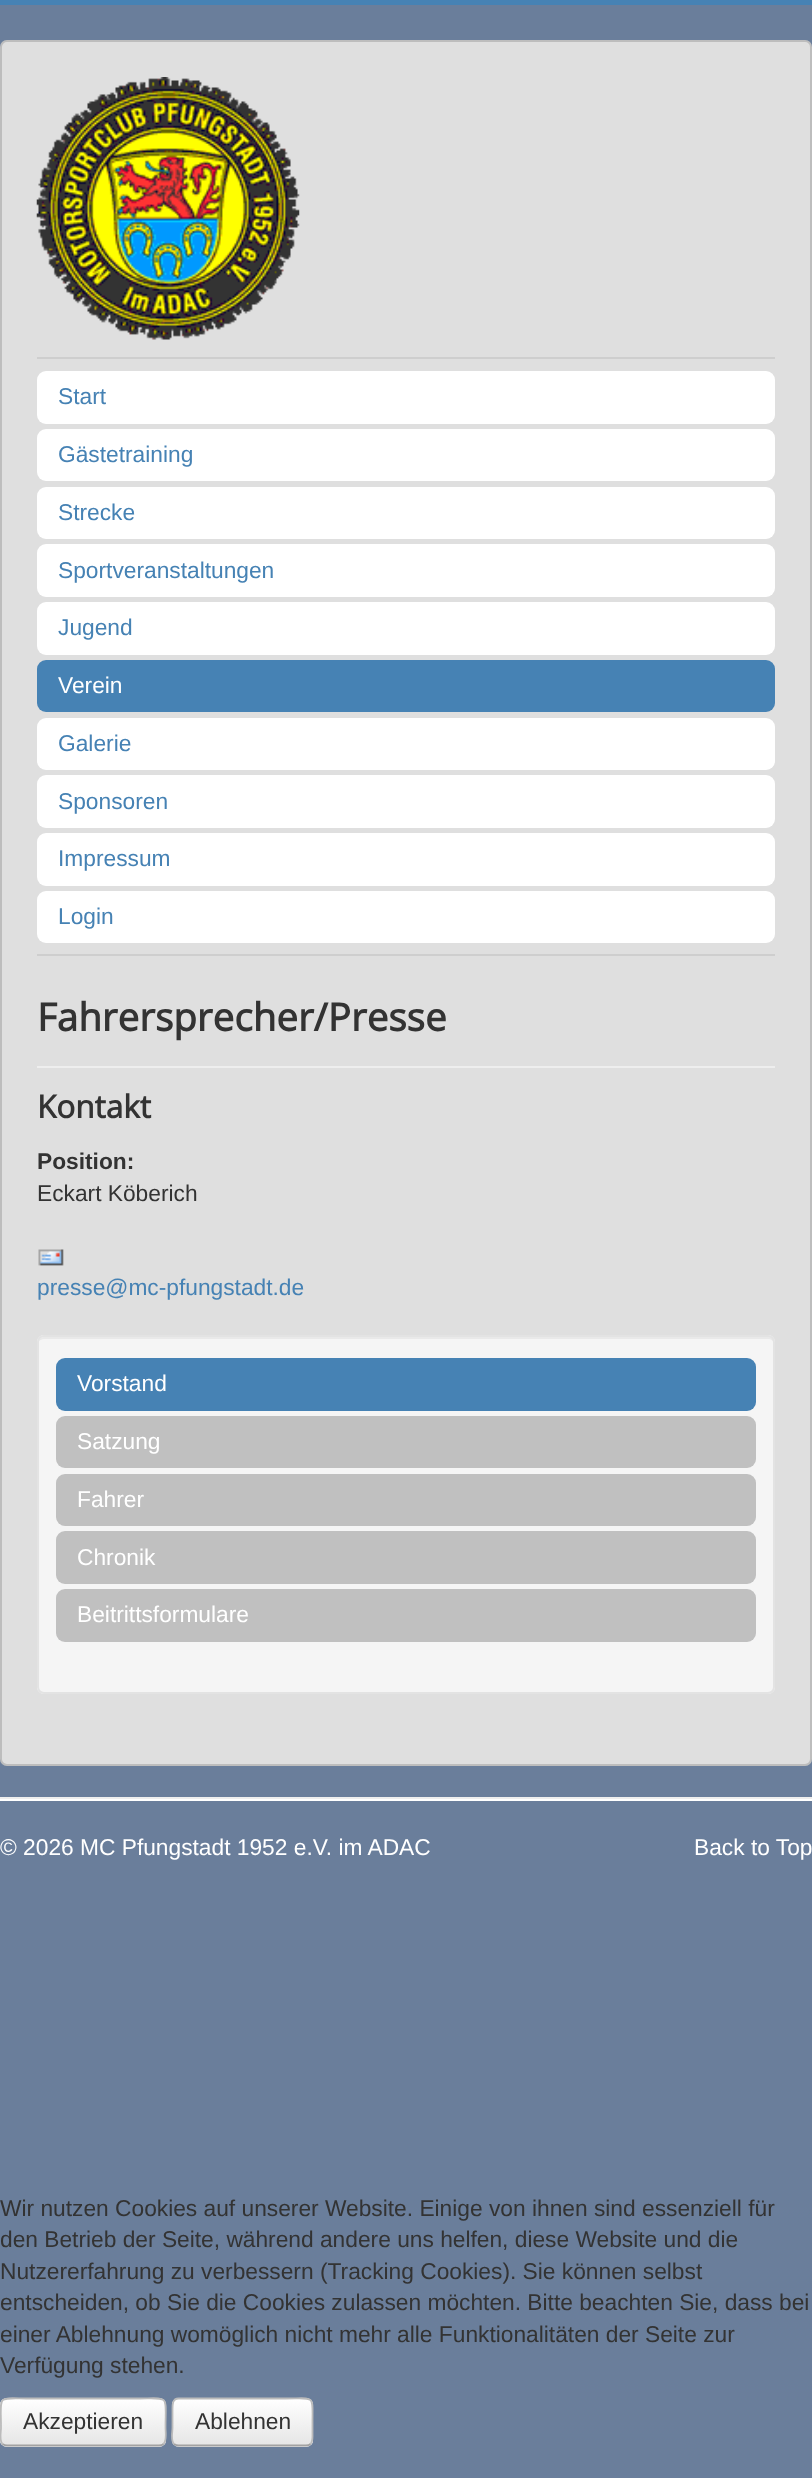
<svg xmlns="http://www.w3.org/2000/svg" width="812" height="2478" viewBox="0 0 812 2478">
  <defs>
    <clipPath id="clip1"><rect x="0" y="2398" width="166" height="49" rx="7"/></clipPath>
    <linearGradient id="g1" gradientUnits="userSpaceOnUse" x1="83" y1="2399" x2="83" y2="2445"><stop offset="0" stop-color="rgb(255,255,255)"/><stop offset="1" stop-color="rgb(230,230,230)"/></linearGradient>
    <clipPath id="clip2"><rect x="172" y="2398" width="141" height="49" rx="7"/></clipPath>
    <linearGradient id="g2" gradientUnits="userSpaceOnUse" x1="242" y1="2399" x2="242" y2="2445"><stop offset="0" stop-color="rgb(255,255,255)"/><stop offset="1" stop-color="rgb(230,230,230)"/></linearGradient>
  </defs>
  <rect width="100%" height="100%" fill="rgb(106,126,155)"/>
  <rect x="0" y="0" width="812" height="5" fill="rgb(70,130,180)"/>
  <rect x="0" y="40" width="812" height="1726" rx="7" fill="rgb(223,223,223)"/>
  <rect x="1" y="41" width="810" height="1724" rx="6" fill="none" stroke="rgba(0,0,0,0.15)" stroke-width="2"/>
  <image x="36" y="77" width="264" height="263" href="pic1.png"/>
  <rect x="37" y="357" width="738" height="2" fill="rgb(206,206,206)"/>
  <rect x="37" y="954" width="738" height="2" fill="rgb(206,206,206)"/>
  <rect x="37" y="371" width="738" height="53" rx="9" fill="rgb(255,255,255)"/>
  <text x="58" y="404" font-family="Liberation Sans" font-size="22.75" fill="rgb(70,130,180)">Start</text>
  <rect x="37" y="429" width="738" height="52" rx="9" fill="rgb(255,255,255)"/>
  <text x="58" y="462" font-family="Liberation Sans" font-size="22.75" fill="rgb(70,130,180)">Gästetraining</text>
  <rect x="37" y="487" width="738" height="52" rx="9" fill="rgb(255,255,255)"/>
  <text x="58" y="520" font-family="Liberation Sans" font-size="22.75" fill="rgb(70,130,180)">Strecke</text>
  <rect x="37" y="544" width="738" height="53" rx="9" fill="rgb(255,255,255)"/>
  <text x="58" y="578" font-family="Liberation Sans" font-size="22.75" fill="rgb(70,130,180)">Sportveranstaltungen</text>
  <rect x="37" y="602" width="738" height="53" rx="9" fill="rgb(255,255,255)"/>
  <text x="58" y="635" font-family="Liberation Sans" font-size="22.75" fill="rgb(70,130,180)">Jugend</text>
  <rect x="37" y="660" width="738" height="52" rx="9" fill="rgb(70,130,180)"/>
  <text x="58" y="693" font-family="Liberation Sans" font-size="22.75" fill="rgb(255,255,255)">Verein</text>
  <rect x="37" y="718" width="738" height="52" rx="9" fill="rgb(255,255,255)"/>
  <text x="58" y="751" font-family="Liberation Sans" font-size="22.75" fill="rgb(70,130,180)">Galerie</text>
  <rect x="37" y="775" width="738" height="53" rx="9" fill="rgb(255,255,255)"/>
  <text x="58" y="809" font-family="Liberation Sans" font-size="22.75" fill="rgb(70,130,180)">Sponsoren</text>
  <rect x="37" y="833" width="738" height="53" rx="9" fill="rgb(255,255,255)"/>
  <text x="58" y="866" font-family="Liberation Sans" font-size="22.75" fill="rgb(70,130,180)">Impressum</text>
  <rect x="37" y="891" width="738" height="52" rx="9" fill="rgb(255,255,255)"/>
  <text x="58" y="924" font-family="Liberation Sans" font-size="22.75" fill="rgb(70,130,180)">Login</text>
  <rect x="37" y="1066" width="738" height="2" fill="rgb(238,238,238)"/>
  <text x="37" y="1031" font-family="Open Sans" font-size="38.5" font-weight="bold" fill="rgb(51,51,51)">Fahrersprecher/Presse</text>
  <text x="37" y="1118" font-family="Open Sans" font-size="31.5" font-weight="bold" fill="rgb(51,51,51)">Kontakt</text>
  <text x="37" y="1169" font-family="Liberation Sans" font-size="22.75" font-weight="bold" fill="rgb(51,51,51)">Position:</text>
  <text x="37" y="1201" font-family="Liberation Sans" font-size="22.75" fill="rgb(51,51,51)">Eckart Köberich</text>
  <image x="38" y="1249" width="26" height="17" href="pic2.png"/>
  <text x="37" y="1295" font-family="Liberation Sans" font-size="22.75" fill="rgb(70,130,180)">presse@mc-pfungstadt.de</text>
  <rect x="37" y="1335" width="738" height="359" rx="7" fill="rgb(245,245,245)"/>
  <path d="M44 1339H768C771 1339 774 1341 774 1344V1342C774 1339 772 1337 769 1337H44C42 1337 39 1339 39 1341C40 1340 42 1339 44 1339Z" fill="rgb(233,233,233)"/>
  <rect x="38" y="1336" width="736" height="357" rx="6" fill="none" stroke="rgb(227,227,227)" stroke-width="2"/>
  <rect x="56" y="1358" width="700" height="53" rx="9" fill="rgb(70,130,180)"/>
  <text x="77" y="1391" font-family="Liberation Sans" font-size="22.75" fill="rgb(255,255,255)">Vorstand</text>
  <rect x="56" y="1416" width="700" height="52" rx="9" fill="rgb(192,192,192)"/>
  <text x="77" y="1449" font-family="Liberation Sans" font-size="22.75" fill="rgb(255,255,255)">Satzung</text>
  <rect x="56" y="1474" width="700" height="52" rx="9" fill="rgb(192,192,192)"/>
  <text x="77" y="1507" font-family="Liberation Sans" font-size="22.75" fill="rgb(255,255,255)">Fahrer</text>
  <rect x="56" y="1531" width="700" height="53" rx="9" fill="rgb(192,192,192)"/>
  <text x="77" y="1565" font-family="Liberation Sans" font-size="22.75" fill="rgb(255,255,255)">Chronik</text>
  <rect x="56" y="1589" width="700" height="53" rx="9" fill="rgb(192,192,192)"/>
  <text x="77" y="1622" font-family="Liberation Sans" font-size="22.75" fill="rgb(255,255,255)">Beitrittsformulare</text>
  <rect x="0" y="1797" width="812" height="2" fill="rgb(238,238,238)"/>
  <rect x="0" y="1799" width="812" height="2" fill="rgb(255,255,255)"/>
  <g font-family="Liberation Sans" font-size="22.75" fill="rgb(255,255,255)">
    <text x="0" y="1855">© 2026 MC Pfungstadt 1952 e.V. im ADAC</text>
    <text x="694" y="1855">Back to Top</text>
  </g>
  <g font-family="Liberation Sans" font-size="22.75" fill="rgb(51,51,51)">
    <text>
      <tspan x="0" y="2216">Wir nutzen Cookies auf unserer Website. Einige von ihnen sind essenziell für</tspan>
      <tspan x="0" y="2247">den Betrieb der Seite, während andere uns helfen, diese Website und die</tspan>
      <tspan x="0" y="2279">Nutzererfahrung zu verbessern (Tracking Cookies). Sie können selbst</tspan>
      <tspan x="0" y="2310">entscheiden, ob Sie die Cookies zulassen möchten. Bitte beachten Sie, dass bei</tspan>
      <tspan x="0" y="2342">einer Ablehnung womöglich nicht mehr alle Funktionalitäten der Seite zur</tspan>
      <tspan x="0" y="2373">Verfügung stehen.</tspan>
    </text>
  </g>
  <rect x="0" y="2398" width="166" height="49" rx="7" fill="rgb(245,245,245)"/>
  <g clip-path="url(#clip1)">
    <rect x="0" y="2399" width="166" height="46" fill="url(#g1)"/>
  </g>
  <path d="M7 2401H159C162 2401 164 2403 164 2406V2441L163 2444C164 2443 165 2441 165 2440V2404C165 2401 163 2399 160 2399H7C4 2399 2 2401 2 2404V2406C2 2403 4 2401 7 2401Z" fill="rgba(255,255,255,0.2)"/>
  <path d="M163.5 2444C162.5 2445 161 2445.5 159 2445.5H7C5.5 2445.5 4 2445 2.5 2444" fill="none" stroke="rgb(162,162,162)" stroke-width="1.8"/>
  <path d="M2.5 2444C-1 2440.5 1 2431.5 1 2428C1 2393-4.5 2398.5 32.5 2398.5H134C171 2398.5 165.5 2393 165.5 2428C165.5 2431.5 167 2440.5 163.5 2444" fill="none" stroke="rgb(187,187,187)" stroke-width="1.8"/>
  <text x="23" y="2429" font-family="Liberation Sans" font-size="22.75" fill="rgb(51,51,51)">Akzeptieren</text>
  <rect x="172" y="2398" width="141" height="49" rx="7" fill="rgb(245,245,245)"/>
  <g clip-path="url(#clip2)">
    <rect x="172" y="2399" width="141" height="46" fill="url(#g2)"/>
  </g>
  <path d="M310.5 2444C309.5 2445 308 2445.5 306 2445.5H178.5C177 2445.5 175.5 2445 174 2444" fill="none" stroke="rgb(162,162,162)" stroke-width="1.8"/>
  <path d="M174 2444C170.5 2440.5 172.5 2431.5 172.5 2428V2410.5C172.5 2405.5 172 2398.5 178.5 2398.5H285C315.5 2398.5 312.5 2394 312.5 2422V2433.5C312.5 2437 313 2441 310.5 2444" fill="none" stroke="rgb(187,187,187)" stroke-width="1.8"/>
  <text x="195" y="2429" font-family="Liberation Sans" font-size="22.75" fill="rgb(51,51,51)">Ablehnen</text>
</svg>
